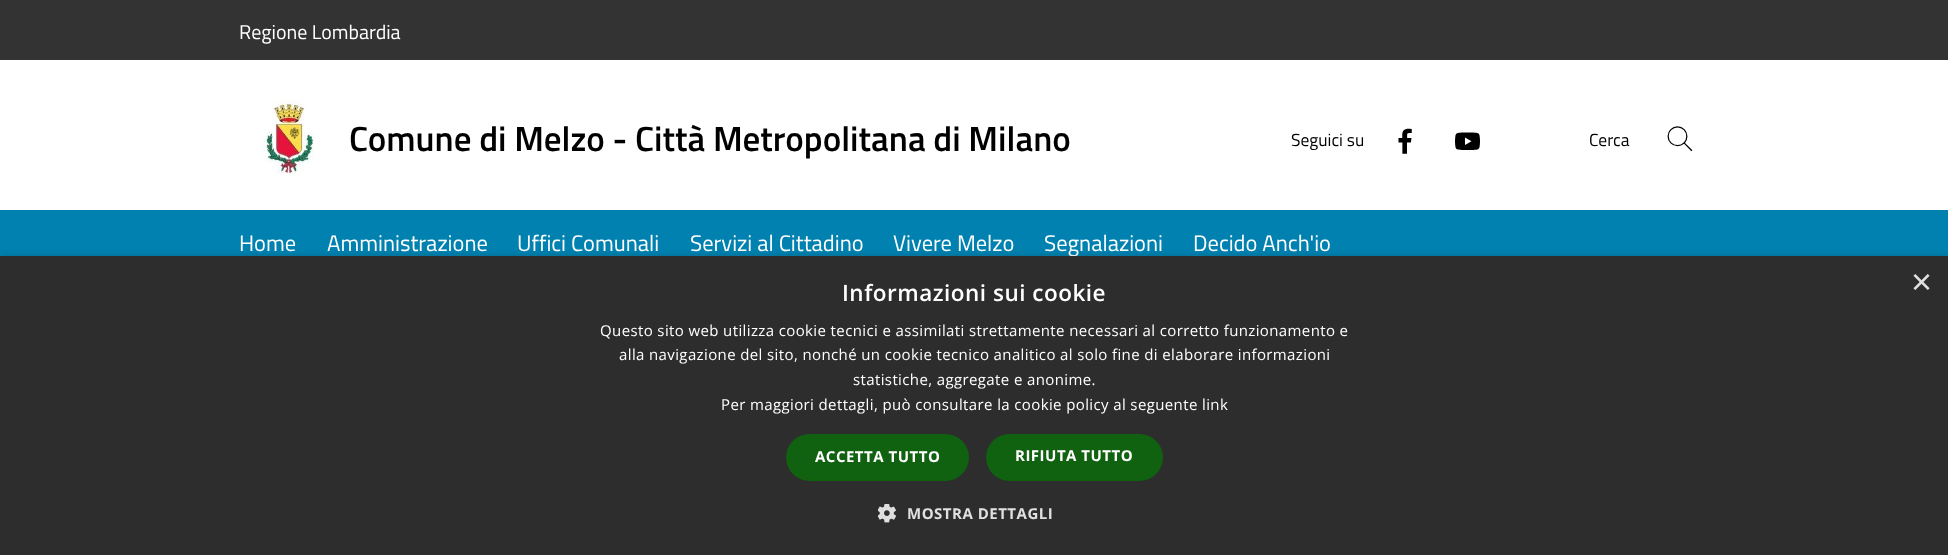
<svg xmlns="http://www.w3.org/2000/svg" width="1948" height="555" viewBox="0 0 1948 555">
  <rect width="100%" height="100%" fill="rgb(255,255,255)"/>
  <rect x="0" y="0" width="1948" height="60" fill="rgb(51,51,51)"/>
  <text x="239" y="39" font-family="Titillium Web" font-size="20" fill="rgb(255,255,255)">Regione Lombardia</text>
  <image x="262" y="100" width="52" height="74" href="pic1.png"/>
  <text x="349" y="151" font-family="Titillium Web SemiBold" font-size="35" font-weight="600" fill="rgb(0,0,0)">Comune di Melzo - Città Metropolitana di Milano</text>
  <text x="1291" y="146" font-family="Titillium Web" font-size="17.5" fill="rgb(0,0,0)">Seguici su</text>
  <image x="1398" y="128" width="14" height="26" href="pic2.png"/>
  <image x="1455" y="132" width="25" height="18" href="pic3.png"/>
  <text x="1589" y="146" font-family="Titillium Web" font-size="17.5" fill="rgb(0,0,0)">Cerca</text>
  <image x="1667" y="126" width="26" height="26" href="pic4.png"/>
  <rect x="0" y="210" width="1948" height="46" fill="rgb(0,129,175)"/>
  <g font-family="Titillium Web" font-size="22.5" fill="rgb(255,255,255)">
    <text x="239" y="251">Home</text>
    <text x="327" y="251">Amministrazione</text>
    <text x="517" y="251">Uffici Comunali</text>
    <text x="690" y="251">Servizi al Cittadino</text>
    <text x="893" y="251">Vivere Melzo</text>
    <text x="1044" y="251">Segnalazioni</text>
    <text x="1193" y="251">Decido Anch'io</text>
  </g>
  <rect x="1" y="259" width="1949" height="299" fill="rgba(0,0,0,0.35)" filter="blur(5px)"/>
  <rect x="0" y="256" width="1948" height="299" fill="rgb(45,45,45)"/>
  <text x="842" y="301" font-family="Open Sans" font-size="22.5" font-weight="600" letter-spacing="0.5" fill="rgb(255,255,255)">Informazioni sui cookie</text>
  <text x="1911" y="294" font-family="Liberation Sans" font-size="36" fill="rgb(224,224,224)">×</text>
  <g font-family="Open Sans" font-size="15" letter-spacing="0.38" fill="rgb(255,255,255)">
    <text x="600" y="336">Questo sito web utilizza cookie tecnici e assimilati strettamente necessari al corretto funzionamento e</text>
    <text x="619" y="360">alla navigazione del sito, nonché un cookie tecnico analitico al solo fine di elaborare informazioni</text>
    <text x="853" y="385">statistiche, aggregate e anonime.</text>
    <text x="721" y="410">Per maggiori dettagli, può consultare la cookie policy al seguente link</text>
  </g>
  <rect x="786" y="434" width="183" height="47" rx="23.5" fill="rgb(16,97,16)"/>
  <text x="815" y="462" font-family="Open Sans" font-size="15" font-weight="bold" letter-spacing="0.5" fill="rgb(255,255,255)">ACCETTA TUTTO</text>
  <rect x="986" y="434" width="177" height="47" rx="23.5" fill="rgb(16,97,16)"/>
  <text x="1015" y="461" font-family="Open Sans" font-size="15" font-weight="bold" letter-spacing="0.5" fill="rgb(255,255,255)">RIFIUTA TUTTO</text>
  <image x="878" y="504" width="18" height="19" href="pic5.png"/>
  <text x="907" y="519" font-family="Open Sans" font-size="15" font-weight="bold" letter-spacing="0.5" fill="rgb(224,224,224)">MOSTRA DETTAGLI</text>
</svg>
